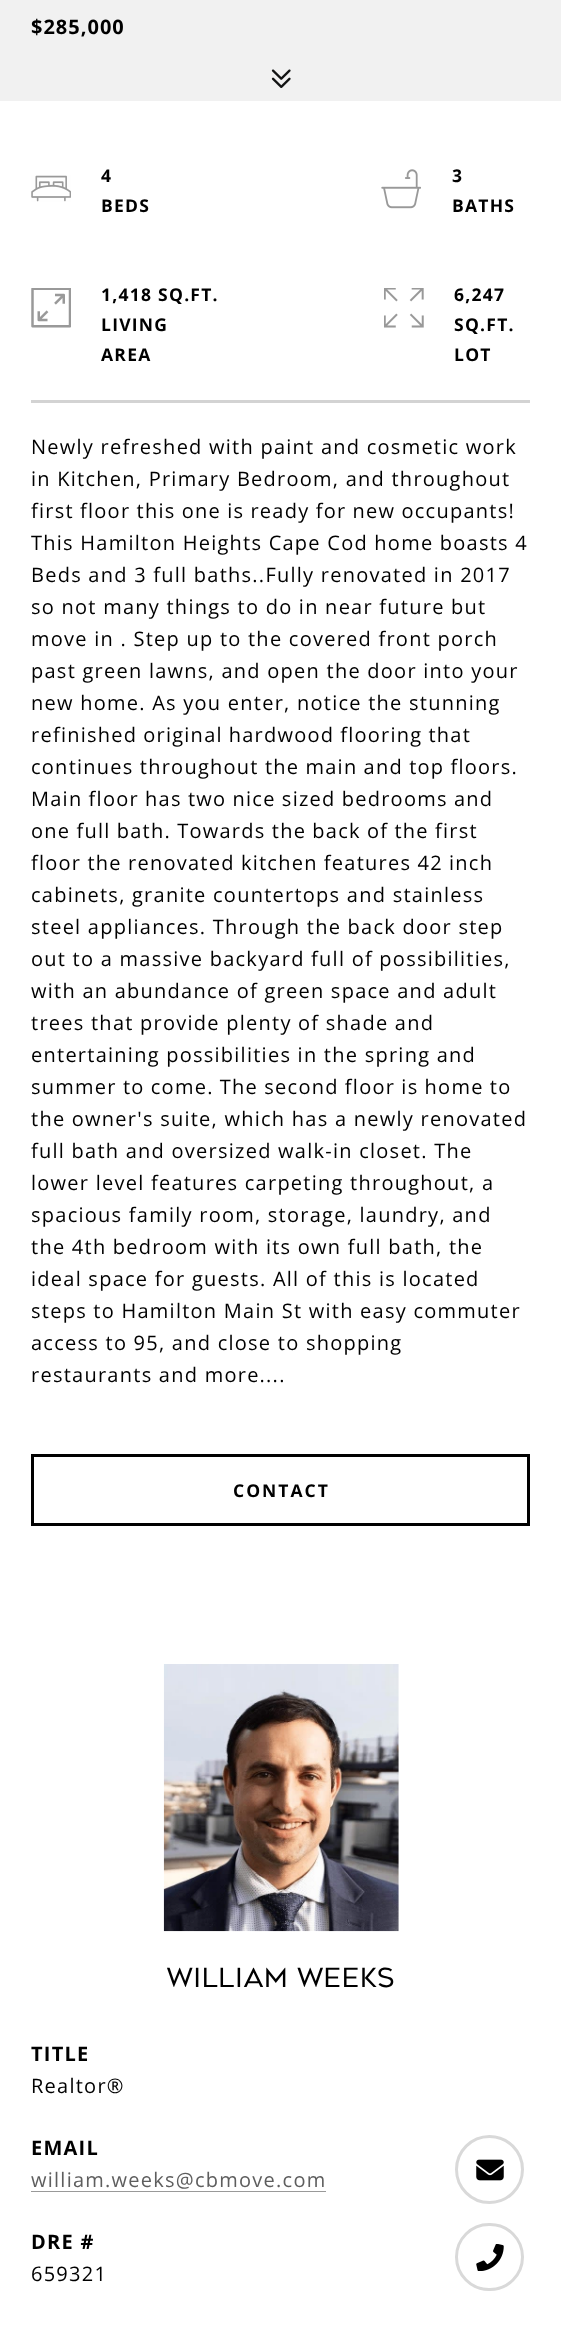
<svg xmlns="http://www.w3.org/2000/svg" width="561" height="2341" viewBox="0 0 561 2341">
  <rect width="100%" height="100%" fill="rgb(255,255,255)"/>
  <rect x="0" y="0" width="561" height="101" fill="rgb(241,241,241)"/>
  <text x="31" y="34" font-family="Open Sans" font-size="20" font-weight="bold" letter-spacing="1" fill="rgb(0,0,0)">$285,000</text>
  <image x="271" y="69" width="20" height="19" href="pic1.png"/>
  <rect x="31" y="400" width="499" height="3" fill="rgb(211,211,211)"/>
  <image x="31" y="175" width="40" height="27" href="pic2.png"/>
  <g font-family="Open Sans" font-size="17.5" font-weight="bold" letter-spacing="1.25" fill="rgb(0,0,0)">
    <text>
      <tspan x="101" y="182">4</tspan>
      <tspan x="101" y="212">BEDS</tspan>
    </text>
  </g>
  <image x="381" y="169" width="40" height="40" href="pic3.png"/>
  <g font-family="Open Sans" font-size="17.5" font-weight="bold" letter-spacing="1.25" fill="rgb(0,0,0)">
    <text>
      <tspan x="452" y="182">3</tspan>
      <tspan x="452" y="212">BATHS</tspan>
    </text>
  </g>
  <image x="31" y="288" width="40" height="40" href="pic4.png"/>
  <g font-family="Open Sans" font-size="17.5" font-weight="bold" letter-spacing="1.25" fill="rgb(0,0,0)">
    <text>
      <tspan x="101" y="301">1,418 SQ.FT.</tspan>
      <tspan x="101" y="331">LIVING</tspan>
      <tspan x="101" y="361">AREA</tspan>
    </text>
  </g>
  <image x="384" y="288" width="40" height="40" href="pic5.png"/>
  <g font-family="Open Sans" font-size="17.5" font-weight="bold" letter-spacing="1.25" fill="rgb(0,0,0)">
    <text>
      <tspan x="454" y="301">6,247</tspan>
      <tspan x="454" y="331">SQ.FT.</tspan>
      <tspan x="454" y="361">LOT</tspan>
    </text>
  </g>
  <g font-family="Open Sans" font-size="20" letter-spacing="1.25" fill="rgb(0,0,0)">
    <text>
      <tspan x="31" y="454">Newly refreshed with paint and cosmetic work</tspan>
      <tspan x="31" y="486">in Kitchen, Primary Bedroom, and throughout</tspan>
      <tspan x="31" y="518" word-spacing="-0.25">first floor this one is ready for new occupants!</tspan>
      <tspan x="31" y="550">This Hamilton Heights Cape Cod home boasts 4</tspan>
      <tspan x="31" y="582">Beds and 3 full baths..Fully renovated in 2017</tspan>
      <tspan x="31" y="614">so not many things to do in near future but</tspan>
      <tspan x="31" y="646">move in . Step up to the covered front porch</tspan>
      <tspan x="31" y="678">past green lawns, and open the door into your</tspan>
      <tspan x="31" y="710">new home. As you enter, notice the stunning</tspan>
      <tspan x="31" y="742" word-spacing="-0.5">refinished original hardwood flooring that</tspan>
      <tspan x="31" y="774" word-spacing="-0.25">continues throughout the main and top floors.</tspan>
      <tspan x="31" y="806" word-spacing="-0.25">Main floor has two nice sized bedrooms and</tspan>
      <tspan x="31" y="838" word-spacing="-0.25">one full bath. Towards the back of the first</tspan>
      <tspan x="31" y="870" word-spacing="-0.25">floor the renovated kitchen features 42 inch</tspan>
      <tspan x="31" y="902">cabinets, granite countertops and stainless</tspan>
      <tspan x="31" y="934">steel appliances. Through the back door step</tspan>
      <tspan x="31" y="966">out to a massive backyard full of possibilities,</tspan>
      <tspan x="31" y="998">with an abundance of green space and adult</tspan>
      <tspan x="31" y="1030">trees that provide plenty of shade and</tspan>
      <tspan x="31" y="1062">entertaining possibilities in the spring and</tspan>
      <tspan x="31" y="1094" word-spacing="-0.25">summer to come. The second floor is home to</tspan>
      <tspan x="31" y="1126">the owner's suite, which has a newly renovated</tspan>
      <tspan x="31" y="1158">full bath and oversized walk-in closet. The</tspan>
      <tspan x="31" y="1190">lower level features carpeting throughout, a</tspan>
      <tspan x="31" y="1222">spacious family room, storage, laundry, and</tspan>
      <tspan x="31" y="1254">the 4th bedroom with its own full bath, the</tspan>
      <tspan x="31" y="1286">ideal space for guests. All of this is located</tspan>
      <tspan x="31" y="1318">steps to Hamilton Main St with easy commuter</tspan>
      <tspan x="31" y="1350">access to 95, and close to shopping</tspan>
      <tspan x="31" y="1382">restaurants and more....</tspan>
    </text>
  </g>
  <rect x="32.5" y="1455.5" width="496" height="69" fill="none" stroke="rgb(0,0,0)" stroke-width="3"/>
  <text x="233" y="1497" font-family="Open Sans" font-size="17.5" font-weight="bold" letter-spacing="2" fill="rgb(0,0,0)">CONTACT</text>
  <image x="163" y="1664" width="236" height="268" href="pic6.png"/>
  <text x="167" y="1987" font-family="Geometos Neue" font-size="26.25" letter-spacing="0.6" fill="rgb(0,0,0)">William Weeks</text>
  <text x="31" y="2061" font-family="Open Sans" font-size="20" font-weight="bold" letter-spacing="1.25" fill="rgb(0,0,0)">TITLE</text>
  <text x="31" y="2093" font-family="Open Sans" font-size="20" letter-spacing="1.25" fill="rgb(0,0,0)">Realtor®</text>
  <text x="31" y="2155" font-family="Open Sans" font-size="20" font-weight="bold" letter-spacing="1.25" fill="rgb(0,0,0)">EMAIL</text>
  <text x="31" y="2187" font-family="Open Sans" font-size="20" letter-spacing="1.25" fill="rgb(94,94,94)">william.weeks@cbmove.com</text>
  <rect x="31" y="2191" width="295" height="1" fill="rgb(153,153,153)"/>
  <text x="31" y="2249" font-family="Open Sans" font-size="20" font-weight="bold" letter-spacing="1.25" fill="rgb(0,0,0)">DRE #</text>
  <text x="31" y="2281" font-family="Open Sans" font-size="20" letter-spacing="1.25" fill="rgb(0,0,0)">659321</text>
  <circle cx="489.5" cy="2169.5" r="33" fill="none" stroke="rgb(217,217,217)" stroke-width="3"/>
  <image x="476" y="2159" width="28" height="22" href="pic7.png"/>
  <rect x="456.5" y="2224.5" width="66" height="65" rx="32.5" fill="none" stroke="rgb(217,217,217)" stroke-width="3"/>
  <image x="476" y="2244" width="28" height="27" href="pic8.png"/>
</svg>
